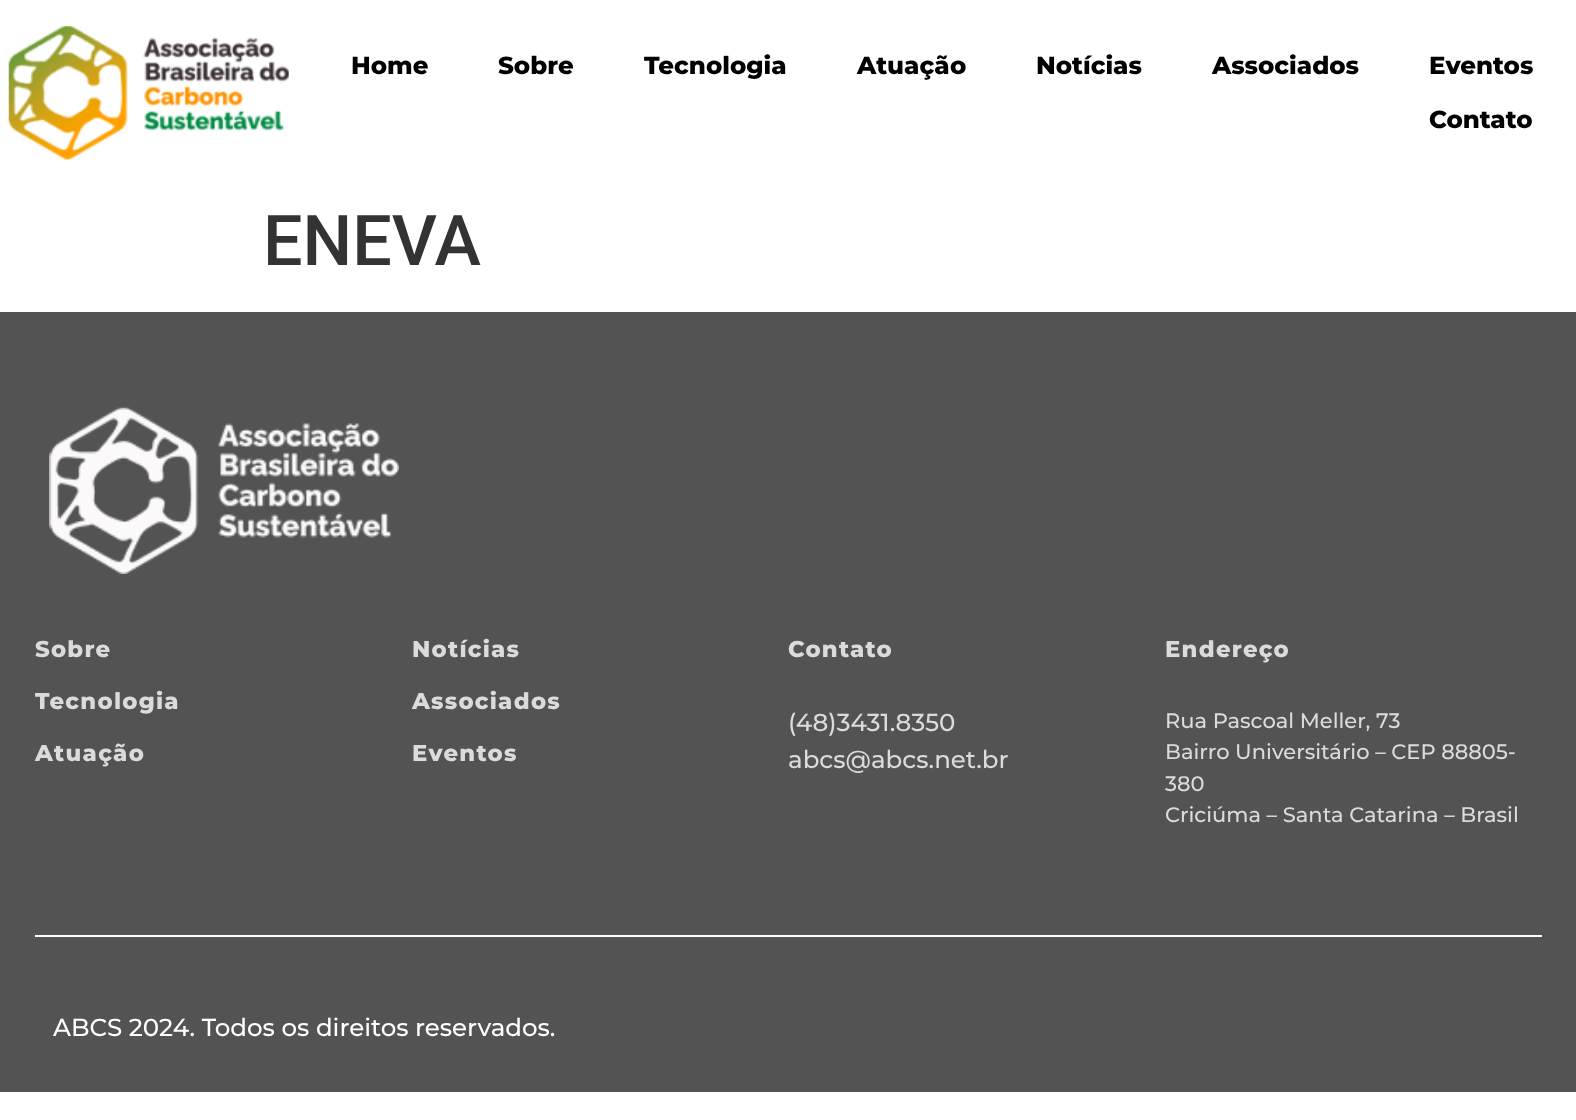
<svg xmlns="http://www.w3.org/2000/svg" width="1576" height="1120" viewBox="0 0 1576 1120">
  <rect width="100%" height="100%" fill="rgb(255,255,255)"/>
  <image x="8" y="26" width="281" height="134" href="pic1.png"/>
  <g font-family="Montserrat" font-size="24.5" font-weight="800" fill="rgb(0,0,0)">
    <text x="351" y="74">Home</text>
    <text x="498" y="74">Sobre</text>
    <text x="644" y="74">Tecnologia</text>
    <text x="857" y="74">Atuação</text>
    <text x="1036" y="74">Notícias</text>
    <text x="1212" y="74">Associados</text>
    <text x="1429" y="74">Eventos</text>
    <text x="1429" y="128">Contato</text>
  </g>
  <text x="263" y="265" font-family="Roboto" font-size="70" font-weight="500" fill="rgb(51,51,51)">ENEVA</text>
  <rect x="0" y="312" width="1576" height="780" fill="rgb(83,83,83)"/>
  <image x="49" y="407" width="350" height="167" href="pic2.png"/>
  <g font-family="Montserrat" font-size="22.75" font-weight="800" letter-spacing="1.25" fill="rgb(219,219,219)">
    <text x="35" y="657">Sobre</text>
    <text x="35" y="709">Tecnologia</text>
    <text x="35" y="761">Atuação</text>
    <text x="412" y="657">Notícias</text>
    <text x="412" y="709">Associados</text>
    <text x="412" y="761">Eventos</text>
    <text x="788" y="657">Contato</text>
  </g>
  <g font-family="Montserrat" font-size="24.5" font-weight="500" fill="rgb(219,219,219)">
    <text>
      <tspan x="788" y="731">(48)3431.8350</tspan>
      <tspan x="788" y="768">abcs@abcs.net.br</tspan>
    </text>
  </g>
  <text x="1165" y="657" font-family="Montserrat" font-size="22.75" font-weight="800" letter-spacing="1.25" fill="rgb(219,219,219)">Endereço</text>
  <g font-family="Montserrat" font-size="21" font-weight="500" fill="rgb(219,219,219)">
    <text>
      <tspan x="1165" y="728">Rua Pascoal Meller, 73</tspan>
      <tspan x="1165" y="759">Bairro Universitário – CEP 88805-</tspan>
      <tspan x="1165" y="791">380</tspan>
      <tspan x="1165" y="822">Criciúma – Santa Catarina – Brasil</tspan>
    </text>
  </g>
  <rect x="35" y="935" width="1507" height="2" fill="rgb(255,255,255)"/>
  <text x="53" y="1036" font-family="Montserrat" font-size="24.5" font-weight="500" fill="rgb(255,255,255)">ABCS 2024. Todos os direitos reservados.</text>
</svg>
